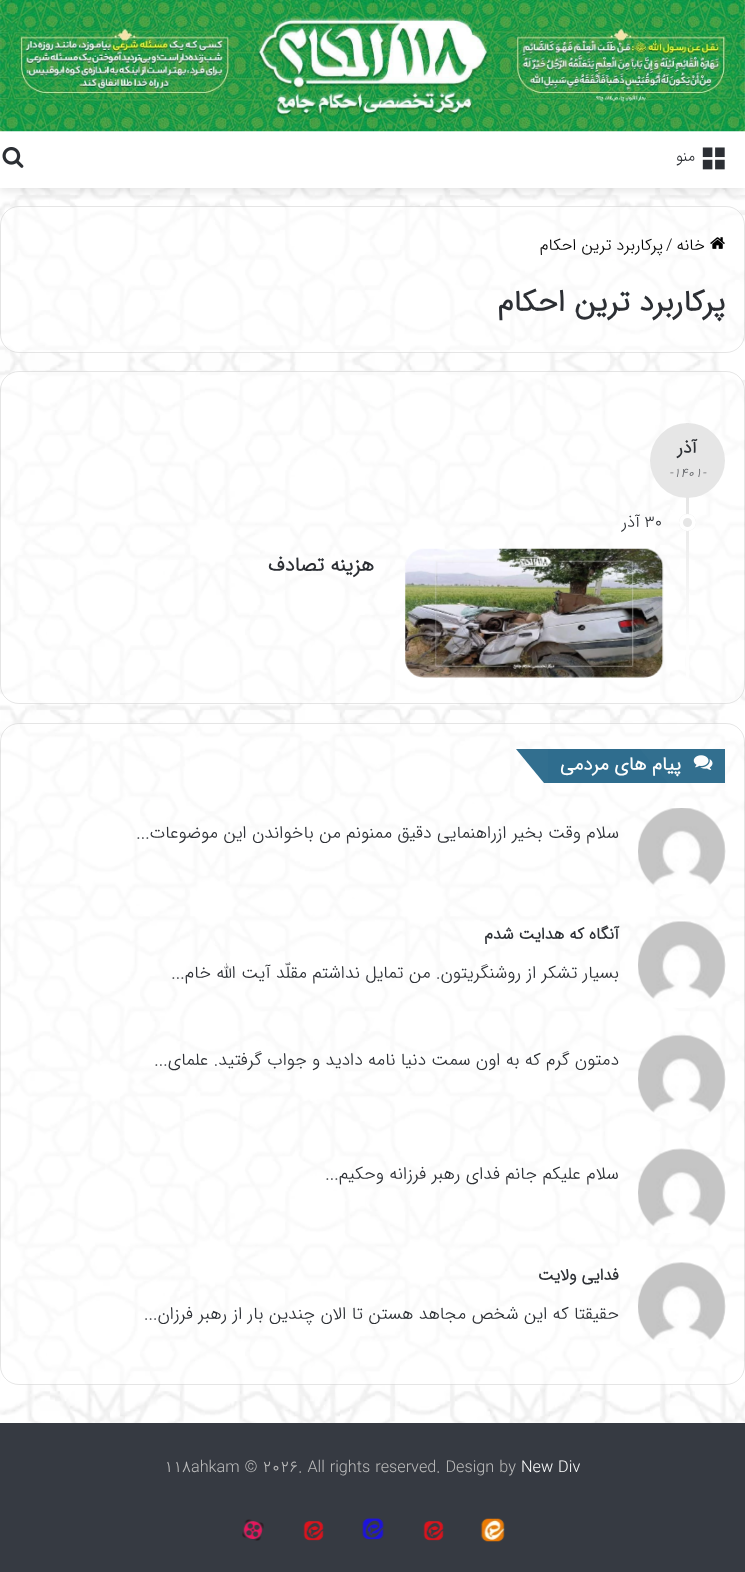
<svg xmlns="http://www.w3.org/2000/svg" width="745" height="1572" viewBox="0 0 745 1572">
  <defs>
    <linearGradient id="g1" gradientUnits="userSpaceOnUse" x1="688" y1="490" x2="688" y2="678"><stop offset="0" stop-color="rgb(229,229,229)" stop-opacity="0.99"/><stop offset="0.8" stop-color="rgb(255,255,255)" stop-opacity="0.99"/></linearGradient>
  </defs>
  <rect width="100%" height="100%" fill="rgb(255,255,255)"/>
  <image x="0" y="188" width="745" height="1235" href="pic1.png"/>
  <rect x="0" y="4" width="745" height="187" fill="rgba(0,0,0,0.1)" filter="blur(4.5px)"/>
  <rect x="0" y="0" width="745" height="188" fill="rgb(255,255,255)"/>
  <image x="0" y="0" width="745" height="132" href="pic2.png"/>
  <image x="702" y="147" width="23" height="23" href="pic3.png"/>
  <text x="695" y="161" font-family="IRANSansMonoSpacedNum" font-size="15" font-weight="300" direction="rtl" fill="rgb(44,47,52)">منو</text>
  <image x="2" y="147" width="22" height="21" href="pic4.png"/>
  <rect x="0" y="206" width="745" height="147" rx="19" fill="rgba(255,255,255,0.63)"/>
  <rect x="0.5" y="206.5" width="744" height="146" rx="18.5" fill="none" stroke="rgba(0,0,0,0.1)"/>
  <image x="710" y="237" width="15" height="12" href="pic5.png"/>
  <text x="705" y="250" font-family="IRANSansMonoSpacedNum" font-size="16.25" font-weight="300" direction="rtl" fill="rgb(0,0,0)">خانه</text>
  <text x="666" y="250" font-family="IRANSansMonoSpacedNum" font-size="16.25" font-weight="300" fill="rgb(0,0,0)">/</text>
  <text x="663" y="250" font-family="IRANSansMonoSpacedNum" font-size="16.25" font-weight="300" direction="rtl" fill="rgb(0,0,0)">پرکاربرد ترین احکام</text>
  <text x="725" y="311" font-family="IRANSansMonoSpacedNum" font-size="30" font-weight="bold" direction="rtl" fill="rgb(44,47,52)">پرکاربرد ترین احکام</text>
  <rect x="0" y="371" width="745" height="333" rx="19" fill="rgba(255,255,255,0.62)"/>
  <rect x="0.5" y="371.5" width="744" height="332" rx="18.5" fill="none" stroke="rgba(0,0,0,0.1)"/>
  <rect x="686" y="423" width="3" height="255" fill="rgba(0,0,0,0.1)"/>
  <rect x="686" y="490" width="3" height="188" fill="rgba(0,0,0,0.1)"/>
  <rect x="686" y="490" width="3" height="188" fill="url(#g1)"/>
  <circle cx="687.5" cy="460.5" r="37.5" fill="rgba(230,230,230,0.99)"/>
  <text x="697" y="453" font-family="IRANSansMonoSpacedNum" font-size="17.5" font-weight="bold" direction="rtl" fill="rgb(44,47,52)">آذر</text>
  <text x="702" y="477" font-family="IRANSansMonoSpacedNum" font-size="13" font-weight="300" font-style="italic" fill="rgb(109,111,114)">-</text>
  <text x="673" y="477" font-family="IRANSansMonoSpacedNum" font-size="13" font-weight="300" font-style="italic" fill="rgb(101,103,107)">1401</text>
  <text x="669" y="477" font-family="IRANSansMonoSpacedNum" font-size="13" font-weight="300" font-style="italic" fill="rgb(109,111,114)">-</text>
  <circle cx="687.5" cy="522.5" r="8.5" fill="rgba(230,230,230,0.99)"/>
  <circle cx="687.5" cy="522.5" r="6.5" fill="none" stroke="rgba(255,255,255,0.99)" stroke-width="4"/>
  <text x="645" y="527" font-family="IRANSansMonoSpacedNum" font-size="16.25" font-weight="300" fill="rgb(44,47,52)">30</text>
  <text x="640" y="527" font-family="IRANSansMonoSpacedNum" font-size="16.25" font-weight="300" direction="rtl" fill="rgb(44,47,52)">آذر</text>
  <image x="405" y="548" width="259" height="130" href="pic6.png"/>
  <text x="374" y="571" font-family="IRANSansMonoSpacedNum" font-size="20" font-weight="bold" direction="rtl" fill="rgb(44,47,52)">هزینه تصادف</text>
  <rect x="0" y="723" width="745" height="662" rx="19" fill="rgba(255,255,255,0.63)"/>
  <rect x="0.5" y="723.5" width="744" height="661" rx="18.5" fill="none" stroke="rgba(0,0,0,0.1)"/>
  <rect x="548" y="749" width="177" height="34" fill="rgba(48,109,142,0.99)"/>
  <path d="M516 749H640L668 783H544Z" fill="rgba(48,109,142,0.99)"/>
  <image x="693" y="755" width="20" height="15" href="pic7.png"/>
  <text x="681" y="770" font-family="IRANSansMonoSpacedNum" font-size="18.75" font-weight="bold" direction="rtl" fill="rgb(253,254,254)">پیام های مردمی</text>
  <image x="638" y="808" width="88" height="86" href="pic8.png"/>
  <text x="619" y="838" font-family="IRANSansMonoSpacedNum" font-size="17.5" font-weight="300" direction="rtl" fill="rgb(44,47,52)">سلام وقت بخیر ازراهنمایی دقیق ممنونم من باخواندن این موضوعات...</text>
  <image x="638" y="921" width="88" height="87" href="pic9.png"/>
  <text x="619" y="939" font-family="IRANSansMonoSpacedNum" font-size="16.25" font-weight="bold" direction="rtl" fill="rgb(44,47,52)">آنگاه که هدایت شدم</text>
  <text x="619" y="978" font-family="IRANSansMonoSpacedNum" font-size="17.5" font-weight="300" direction="rtl" fill="rgb(44,47,52)">بسیار تشکر از روشنگریتون. من تمایل نداشتم مقلّد آیت الله خام...</text>
  <image x="638" y="1034" width="88" height="85" href="pic10.png"/>
  <text x="619" y="1065" font-family="IRANSansMonoSpacedNum" font-size="17.5" font-weight="300" direction="rtl" fill="rgb(44,47,52)">دمتون گرم که به اون سمت دنیا نامه دادید و جواب گرفتید. علمای...</text>
  <image x="638" y="1148" width="88" height="85" href="pic11.png"/>
  <text x="619" y="1179" font-family="IRANSansMonoSpacedNum" font-size="17.5" font-weight="300" direction="rtl" fill="rgb(44,47,52)">سلام علیکم جانم فدای رهبر فرزانه وحکیم...</text>
  <image x="638" y="1262" width="88" height="86" href="pic12.png"/>
  <text x="619" y="1280" font-family="IRANSansMonoSpacedNum" font-size="16.25" font-weight="bold" direction="rtl" fill="rgb(44,47,52)">فدایی ولایت</text>
  <text x="619" y="1319" font-family="IRANSansMonoSpacedNum" font-size="17.5" font-weight="300" direction="rtl" fill="rgb(44,47,52)">حقیقتا که این شخص مجاهد هستن تا الان چندین بار از رهبر فرزان...</text>
  <rect x="0" y="1423" width="745" height="149" fill="rgb(54,58,66)"/>
  <text x="521" y="1472" font-family="IRANSansMonoSpacedNum" font-size="16.25" font-weight="300" fill="rgb(253,254,254)">New Div</text>
  <text x="164" y="1472" font-family="IRANSansMonoSpacedNum" font-size="16.25" font-weight="300" fill="rgb(187,187,187)">118ahkam © 2026. All rights reserved. Design by</text>
  <image x="480" y="1518" width="25" height="24" href="pic13.png"/>
  <image x="423" y="1521" width="21" height="20" href="pic14.png"/>
  <image x="362" y="1518" width="22" height="22" href="pic15.png"/>
  <image x="303" y="1521" width="21" height="20" href="pic14.png"/>
  <image x="242" y="1519" width="22" height="22" href="pic16.png"/>
</svg>
